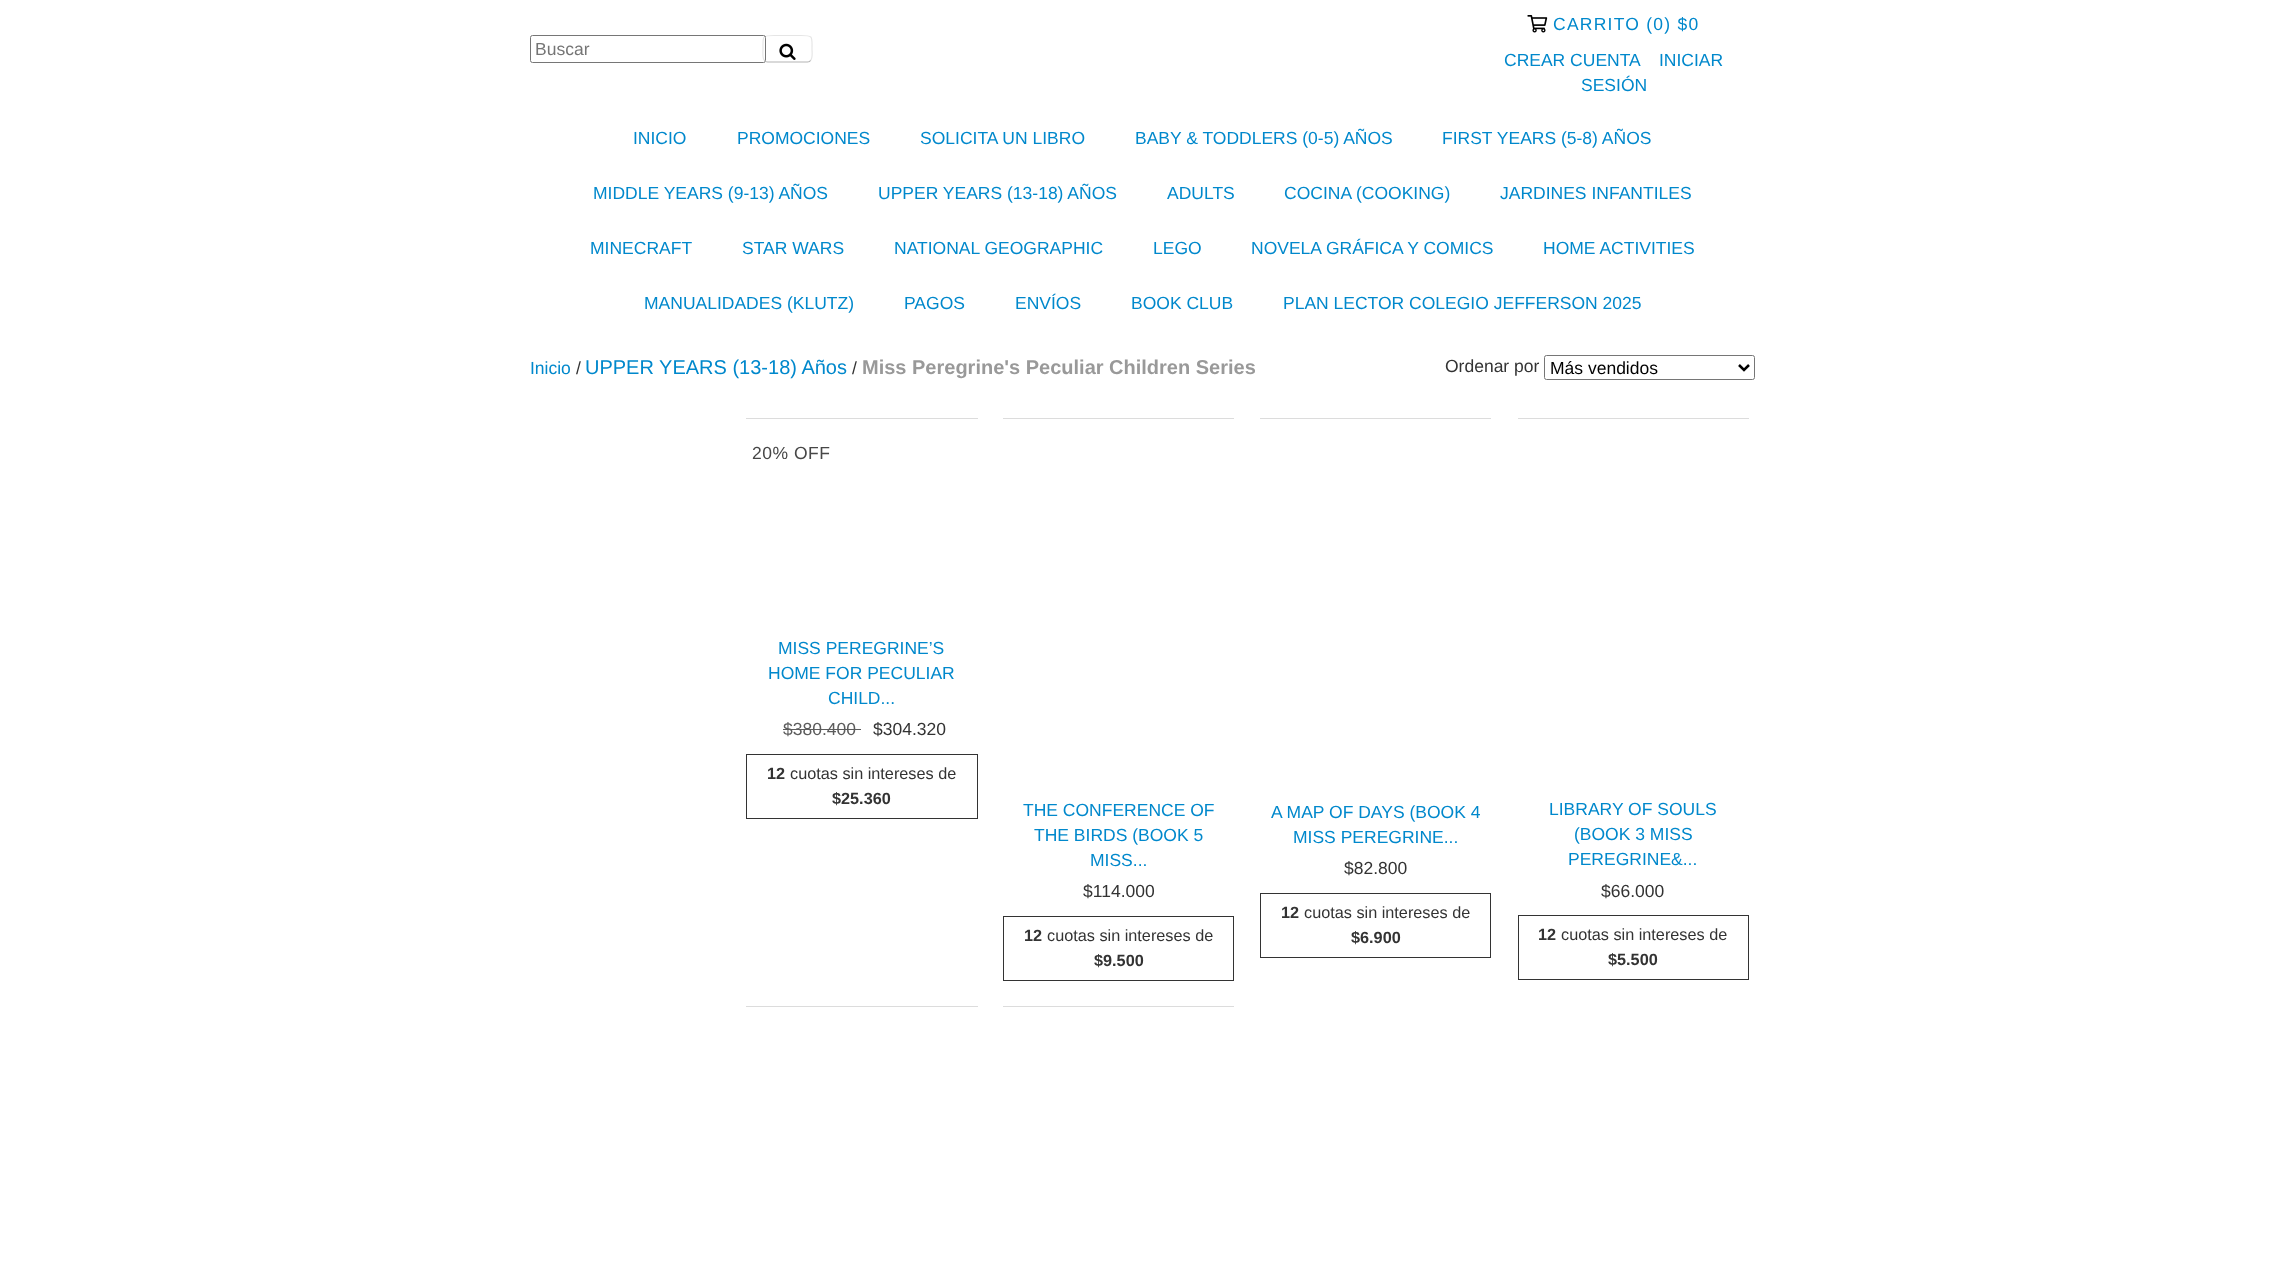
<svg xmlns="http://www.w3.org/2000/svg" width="2284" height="1274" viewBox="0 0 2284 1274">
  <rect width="100%" height="100%" fill="rgb(255,255,255)"/>
  <rect x="530.5" y="35.5" width="235" height="27" rx="2" fill="none" stroke="rgb(118,118,118)"/>
  <text x="535" y="55" font-family="Liberation Sans" font-size="17.5" fill="rgb(117,117,117)">Buscar</text>
  <path d="M768 38H808C810 38 811 39 811 41C811 35 805 36 800 36H774C770 36 764 35 764 41C764 39 765 38 768 38Z" fill="rgba(255,255,255,0.2)"/>
  <path d="M810.5 60.5C810 61.5 808.5 62 807.5 62H767.5C766.5 62 765 61.5 764.5 60.5" fill="none" stroke="rgb(179,179,179)" stroke-width="1.2"/>
  <path d="M764.5 60.5C762 58 763 52 763 49C763 36.5 761.5 35.5 774 35.5H801C813.5 35.5 812 36.5 812 49C812 52 813 58 810.5 60.5" fill="none" stroke="rgba(0,0,0,0.1)" stroke-width="1.2"/>
  <image x="779" y="43" width="17" height="17" href="pic1.png"/>
  <image x="1527" y="15" width="21" height="18" href="pic2.png"/>
  <text x="1553" y="30" font-family="Liberation Sans" font-size="17.5" letter-spacing="1.25" fill="rgb(0,136,204)">CARRITO (0) $0</text>
  <g font-family="Liberation Sans" font-size="17.5" fill="rgb(0,136,204)">
    <text x="1504" y="66">CREAR CUENTA</text>
    <text x="1659" y="66">INICIAR</text>
    <text x="1581" y="91">SESIÓN</text>
    <text x="633" y="144">INICIO</text>
    <text x="737" y="144">PROMOCIONES</text>
    <text x="920" y="144">SOLICITA UN LIBRO</text>
    <text x="1135" y="144">BABY &amp; TODDLERS (0-5) AÑOS</text>
    <text x="1442" y="144">FIRST YEARS (5-8) AÑOS</text>
    <text x="593" y="199">MIDDLE YEARS (9-13) AÑOS</text>
    <text x="878" y="199">UPPER YEARS (13-18) AÑOS</text>
    <text x="1167" y="199">ADULTS</text>
    <text x="1284" y="199">COCINA (COOKING)</text>
    <text x="1500" y="199">JARDINES INFANTILES</text>
    <text x="590" y="254">MINECRAFT</text>
    <text x="742" y="254">STAR WARS</text>
    <text x="894" y="254">NATIONAL GEOGRAPHIC</text>
    <text x="1153" y="254">LEGO</text>
    <text x="1251" y="254">NOVELA GRÁFICA Y COMICS</text>
    <text x="1543" y="254">HOME ACTIVITIES</text>
    <text x="644" y="309">MANUALIDADES (KLUTZ)</text>
    <text x="904" y="309">PAGOS</text>
    <text x="1015" y="309">ENVÍOS</text>
    <text x="1131" y="309">BOOK CLUB</text>
    <text x="1283" y="309">PLAN LECTOR COLEGIO JEFFERSON 2025</text>
    <text x="530" y="374">Inicio</text>
  </g>
  <text x="576" y="374" font-family="Liberation Sans" font-size="17.5" fill="rgb(51,51,51)">/</text>
  <text x="585" y="374" font-family="Liberation Sans" font-size="20" fill="rgb(0,136,204)">UPPER YEARS (13-18) Años</text>
  <text x="852" y="374" font-family="Liberation Sans" font-size="17.5" fill="rgb(51,51,51)">/</text>
  <text x="862" y="374" font-family="Liberation Sans" font-size="20" font-weight="bold" fill="rgb(153,153,153)">Miss Peregrine's Peculiar Children Series</text>
  <text x="1445" y="372" font-family="Liberation Sans" font-size="17.5" fill="rgb(51,51,51)">Ordenar por</text>
  <rect x="1544.5" y="355.5" width="210" height="24" rx="2" fill="none" stroke="rgb(118,118,118)"/>
  <path d="M1739 365L1744 370L1749 365" fill="none" stroke="rgb(0,0,0)" stroke-width="2.5"/>
  <text x="1550" y="374" font-family="Liberation Sans" font-size="17.5" fill="rgb(0,0,0)">Más vendidos</text>
  <rect x="746" y="418" width="232" height="1" fill="rgb(220,220,220)"/>
  <text x="752" y="459" font-family="Liberation Sans" font-size="17.5" letter-spacing="0.5" fill="rgb(71,71,71)">20% OFF</text>
  <g font-family="Liberation Sans" font-size="17.5" fill="rgb(0,136,204)">
    <text x="778" y="654">MISS PEREGRINE’S</text>
    <text x="768" y="679">HOME FOR PECULIAR</text>
    <text x="828" y="704">CHILD...</text>
  </g>
  <text x="783" y="735" font-family="Liberation Sans" font-size="17.5" fill="rgb(92,92,92)">$380.400</text>
  <rect x="783" y="729" width="78" height="1" fill="rgb(92,92,92)"/>
  <text x="873" y="735" font-family="Liberation Sans" font-size="17.5" fill="rgb(51,51,51)">$304.320</text>
  <rect x="746.5" y="754.5" width="231" height="64" fill="none" stroke="rgb(51,51,51)"/>
  <text x="767" y="779" font-family="Liberation Sans" font-size="16.25" font-weight="bold" fill="rgb(51,51,51)">12</text>
  <text x="790" y="779" font-family="Liberation Sans" font-size="16.25" fill="rgb(51,51,51)">cuotas sin intereses de</text>
  <text x="832" y="804" font-family="Liberation Sans" font-size="16.25" font-weight="bold" fill="rgb(51,51,51)">$25.360</text>
  <rect x="1003" y="418" width="231" height="1" fill="rgb(220,220,220)"/>
  <g font-family="Liberation Sans" font-size="17.5" fill="rgb(0,136,204)">
    <text x="1023" y="816">THE CONFERENCE OF</text>
    <text x="1034" y="841">THE BIRDS (BOOK 5</text>
    <text x="1090" y="866">MISS...</text>
  </g>
  <text x="1083" y="897" font-family="Liberation Sans" font-size="17.5" fill="rgb(51,51,51)">$114.000</text>
  <rect x="1003.5" y="916.5" width="230" height="64" fill="none" stroke="rgb(51,51,51)"/>
  <text x="1024" y="941" font-family="Liberation Sans" font-size="16.25" font-weight="bold" fill="rgb(51,51,51)">12</text>
  <text x="1047" y="941" font-family="Liberation Sans" font-size="16.25" fill="rgb(51,51,51)">cuotas sin intereses de</text>
  <text x="1094" y="966" font-family="Liberation Sans" font-size="16.25" font-weight="bold" fill="rgb(51,51,51)">$9.500</text>
  <rect x="1260" y="418" width="231" height="1" fill="rgb(220,220,220)"/>
  <g font-family="Liberation Sans" font-size="17.5" fill="rgb(0,136,204)">
    <text x="1271" y="818">A MAP OF DAYS (BOOK 4</text>
    <text x="1293" y="843">MISS PEREGRINE...</text>
  </g>
  <text x="1344" y="874" font-family="Liberation Sans" font-size="17.5" fill="rgb(51,51,51)">$82.800</text>
  <rect x="1260.5" y="893.5" width="230" height="64" fill="none" stroke="rgb(51,51,51)"/>
  <text x="1281" y="918" font-family="Liberation Sans" font-size="16.25" font-weight="bold" fill="rgb(51,51,51)">12</text>
  <text x="1304" y="918" font-family="Liberation Sans" font-size="16.25" fill="rgb(51,51,51)">cuotas sin intereses de</text>
  <text x="1351" y="943" font-family="Liberation Sans" font-size="16.25" font-weight="bold" fill="rgb(51,51,51)">$6.900</text>
  <rect x="1518" y="418" width="231" height="1" fill="rgb(220,220,220)"/>
  <g font-family="Liberation Sans" font-size="17.5" fill="rgb(0,136,204)">
    <text x="1549" y="815">LIBRARY OF SOULS</text>
    <text x="1574" y="840">(BOOK 3 MISS</text>
    <text x="1568" y="865">PEREGRINE&amp;...</text>
  </g>
  <text x="1601" y="897" font-family="Liberation Sans" font-size="17.5" fill="rgb(51,51,51)">$66.000</text>
  <rect x="1518.5" y="915.5" width="230" height="64" fill="none" stroke="rgb(51,51,51)"/>
  <text x="1538" y="940" font-family="Liberation Sans" font-size="16.25" font-weight="bold" fill="rgb(51,51,51)">12</text>
  <text x="1561" y="940" font-family="Liberation Sans" font-size="16.25" fill="rgb(51,51,51)">cuotas sin intereses de</text>
  <text x="1608" y="965" font-family="Liberation Sans" font-size="16.25" font-weight="bold" fill="rgb(51,51,51)">$5.500</text>
  <rect x="746" y="1006" width="232" height="1" fill="rgb(220,220,220)"/>
  <rect x="1003" y="1006" width="231" height="1" fill="rgb(220,220,220)"/>
</svg>
